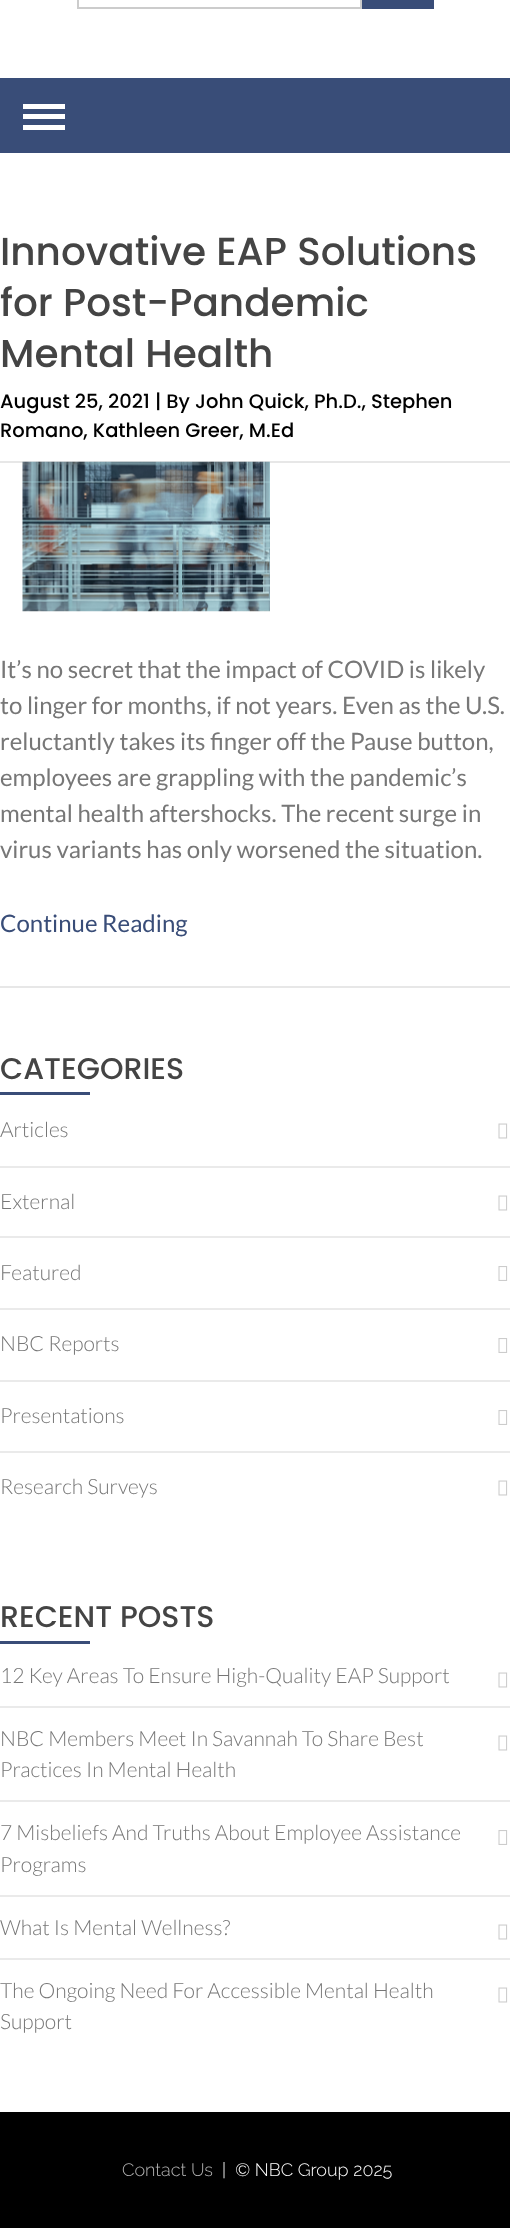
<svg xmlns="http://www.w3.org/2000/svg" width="510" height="2228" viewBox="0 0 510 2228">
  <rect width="100%" height="100%" fill="rgb(255,255,255)"/>
  <rect x="78" y="-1" width="283" height="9" fill="none" stroke="rgb(204,204,204)" stroke-width="2"/>
  <rect x="362" y="0" width="72" height="9" fill="rgb(57,77,120)"/>
  <rect x="0" y="78" width="510" height="75" fill="rgb(57,77,120)"/>
  <rect x="23" y="104" width="42" height="5" fill="rgb(255,255,255)"/>
  <rect x="23" y="114" width="42" height="5" fill="rgb(255,255,255)"/>
  <rect x="23" y="125" width="42" height="5" fill="rgb(255,255,255)"/>
  <g font-family="Poppins" font-size="39" font-weight="500" fill="rgb(68,68,68)">
    <text>
      <tspan x="0" y="265">Innovative EAP Solutions</tspan>
      <tspan x="0" y="316">for Post-Pandemic</tspan>
      <tspan x="0" y="367">Mental Health</tspan>
    </text>
  </g>
  <rect x="0" y="461" width="510" height="2" fill="rgb(231,231,231)"/>
  <g font-family="Poppins" font-size="19.5" font-weight="500" fill="rgb(0,0,0)">
    <text>
      <tspan x="0" y="408">August 25, 2021 | By John Quick, Ph.D., Stephen</tspan>
      <tspan x="0" y="437">Romano, Kathleen Greer, M.Ed</tspan>
    </text>
  </g>
  <image x="22" y="461" width="248" height="151" href="pic1.png"/>
  <g font-family="Lato" font-size="24" fill="rgb(119,119,119)">
    <text>
      <tspan x="0" y="678">It’s no secret that the impact of COVID is likely</tspan>
      <tspan x="0" y="714">to linger for months, if not years. Even as the U.S.</tspan>
      <tspan x="0" y="750">reluctantly takes its finger off the Pause button,</tspan>
      <tspan x="0" y="786">employees are grappling with the pandemic’s</tspan>
      <tspan x="0" y="822">mental health aftershocks. The recent surge in</tspan>
      <tspan x="0" y="858">virus variants has only worsened the situation.</tspan>
    </text>
  </g>
  <text x="0" y="932" font-family="Lato" font-size="24" fill="rgb(57,77,120)">Continue Reading</text>
  <rect x="0" y="986" width="510" height="2" fill="rgb(231,231,231)"/>
  <text x="0" y="1079" font-family="Poppins" font-size="30" font-weight="500" fill="rgb(68,68,68)">CATEGORIES</text>
  <rect x="0" y="1092" width="90" height="3" fill="rgb(57,77,120)"/>
  <rect x="0" y="1166" width="510" height="2" fill="rgb(234,234,234)"/>
  <text x="0" y="1137" font-family="Lato" font-size="21" font-weight="300" fill="rgb(119,119,119)">Articles</text>
  <image x="498" y="1123" width="10" height="16" href="pic2.png"/>
  <rect x="0" y="1236" width="510" height="2" fill="rgb(234,234,234)"/>
  <text x="0" y="1209" font-family="Lato" font-size="21" font-weight="300" fill="rgb(119,119,119)">External</text>
  <image x="498" y="1195" width="10" height="16" href="pic2.png"/>
  <rect x="0" y="1308" width="510" height="2" fill="rgb(234,234,234)"/>
  <text x="0" y="1280" font-family="Lato" font-size="21" font-weight="300" fill="rgb(119,119,119)">Featured</text>
  <image x="498" y="1266" width="10" height="15" href="pic3.png"/>
  <rect x="0" y="1380" width="510" height="2" fill="rgb(234,234,234)"/>
  <text x="0" y="1351" font-family="Lato" font-size="21" font-weight="300" fill="rgb(119,119,119)">NBC Reports</text>
  <image x="498" y="1338" width="10" height="15" href="pic3.png"/>
  <rect x="0" y="1451" width="510" height="2" fill="rgb(234,234,234)"/>
  <text x="0" y="1423" font-family="Lato" font-size="21" font-weight="300" fill="rgb(119,119,119)">Presentations</text>
  <image x="498" y="1410" width="10" height="15" href="pic3.png"/>
  <text x="0" y="1494" font-family="Lato" font-size="21" font-weight="300" fill="rgb(119,119,119)">Research Surveys</text>
  <image x="498" y="1480" width="10" height="16" href="pic2.png"/>
  <text x="0" y="1627" font-family="Poppins" font-size="30" font-weight="500" fill="rgb(68,68,68)">RECENT POSTS</text>
  <rect x="0" y="1641" width="90" height="3" fill="rgb(57,77,120)"/>
  <rect x="0" y="1706" width="510" height="2" fill="rgb(234,234,234)"/>
  <text x="0" y="1683" font-family="Lato" font-size="21" font-weight="300" fill="rgb(119,119,119)">12 Key Areas To Ensure High-Quality EAP Support</text>
  <image x="498" y="1672" width="10" height="16" href="pic2.png"/>
  <rect x="0" y="1800" width="510" height="2" fill="rgb(234,234,234)"/>
  <g font-family="Lato" font-size="21" font-weight="300" fill="rgb(119,119,119)">
    <text>
      <tspan x="0" y="1746">NBC Members Meet In Savannah To Share Best</tspan>
      <tspan x="0" y="1777">Practices In Mental Health</tspan>
    </text>
  </g>
  <image x="498" y="1735" width="10" height="16" href="pic2.png"/>
  <rect x="0" y="1895" width="510" height="2" fill="rgb(234,234,234)"/>
  <g font-family="Lato" font-size="21" font-weight="300" fill="rgb(119,119,119)">
    <text>
      <tspan x="0" y="1840">7 Misbeliefs And Truths About Employee Assistance</tspan>
      <tspan x="0" y="1872">Programs</tspan>
    </text>
  </g>
  <image x="498" y="1830" width="10" height="15" href="pic3.png"/>
  <rect x="0" y="1958" width="510" height="2" fill="rgb(234,234,234)"/>
  <text x="0" y="1935" font-family="Lato" font-size="21" font-weight="300" fill="rgb(119,119,119)">What Is Mental Wellness?</text>
  <image x="498" y="1924" width="10" height="16" href="pic2.png"/>
  <g font-family="Lato" font-size="21" font-weight="300" fill="rgb(119,119,119)">
    <text>
      <tspan x="0" y="1998">The Ongoing Need For Accessible Mental Health</tspan>
      <tspan x="0" y="2029">Support</tspan>
    </text>
  </g>
  <image x="498" y="1987" width="10" height="16" href="pic2.png"/>
  <rect x="0" y="2112" width="510" height="116" fill="rgb(0,0,0)"/>
  <text x="122" y="2176" font-family="Raleway" font-size="18" font-weight="300" fill="rgb(179,179,179)">Contact Us</text>
  <text x="222" y="2176" font-family="Raleway" font-size="18" font-weight="300" fill="rgb(255,255,255)" xml:space="preserve">|  © NBC Group 2025</text>
</svg>
